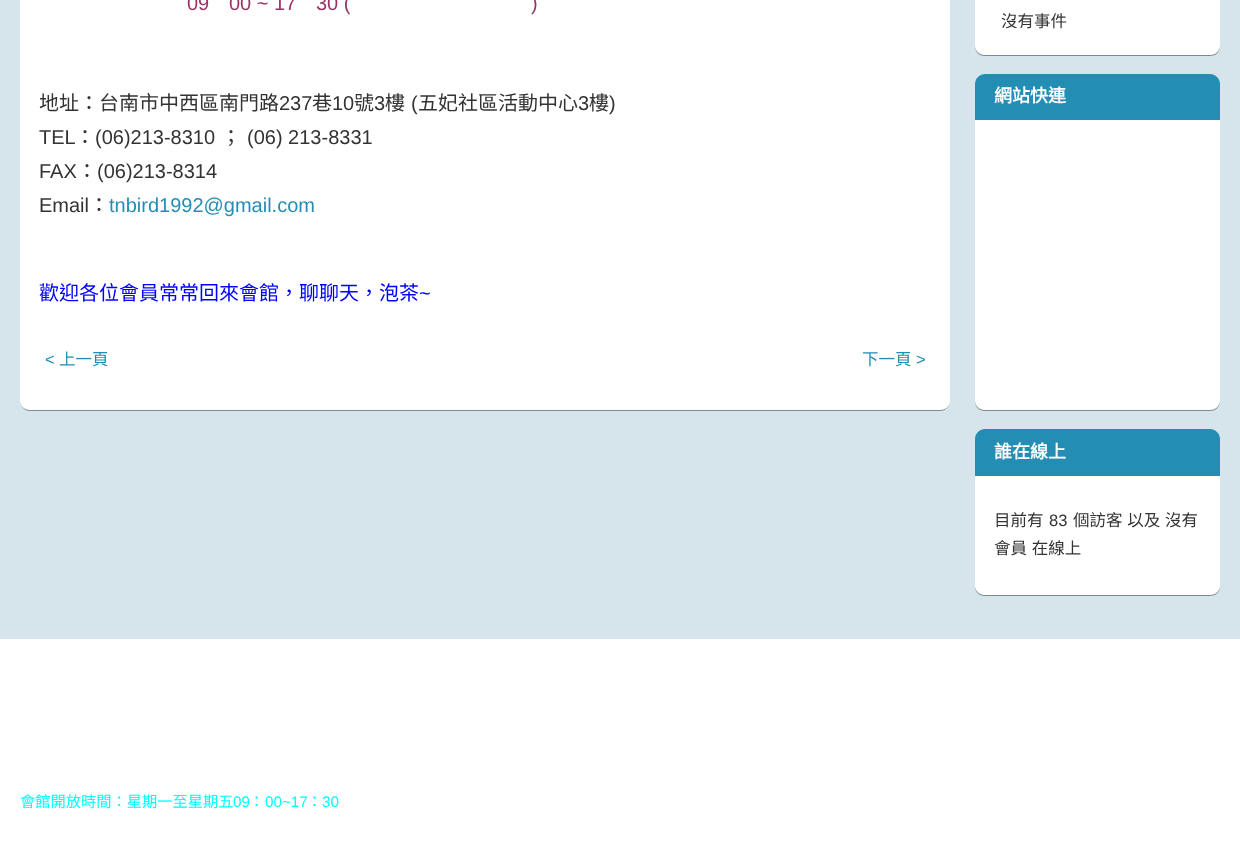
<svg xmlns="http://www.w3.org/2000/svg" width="1240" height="841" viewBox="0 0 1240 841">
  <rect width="100%" height="100%" fill="rgb(255,255,255)"/>
  <rect x="0" y="0" width="1240" height="639" fill="rgb(214,228,236)"/>
  <path d="M20 400C20 406 24 411 30 411H940C946 411 950 406 950 400C950 406 946 410 940 410H30C24 410 20 406 20 400Z" fill="rgb(128,137,142)"/>
  <rect x="20" y="-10" width="930" height="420" rx="10" fill="rgb(255,255,255)"/>
  <g font-family="Liberation Sans" font-size="20" fill="rgb(153,51,102)">
    <text x="187" y="10">09</text>
    <text x="229" y="10">00 ~ 17</text>
    <text x="316" y="10">30 (</text>
    <text x="531" y="10">)</text>
  </g>
  <text x="39" y="110" font-family="Noto Sans CJK TC" font-size="20" fill="rgb(51,51,51)">地址：台南市中西區南門路</text>
  <text x="279" y="110" font-family="Liberation Sans" font-size="20" fill="rgb(51,51,51)">237</text>
  <text x="312" y="110" font-family="Noto Sans CJK TC" font-size="20" fill="rgb(51,51,51)">巷</text>
  <text x="332" y="110" font-family="Liberation Sans" font-size="20" fill="rgb(51,51,51)">10</text>
  <text x="354" y="110" font-family="Noto Sans CJK TC" font-size="20" fill="rgb(51,51,51)">號</text>
  <text x="374" y="110" font-family="Liberation Sans" font-size="20" fill="rgb(51,51,51)">3</text>
  <text x="385" y="110" font-family="Noto Sans CJK TC" font-size="20" fill="rgb(51,51,51)">樓</text>
  <text x="411" y="110" font-family="Liberation Sans" font-size="20" fill="rgb(51,51,51)">(</text>
  <text x="418" y="110" font-family="Noto Sans CJK TC" font-size="20" fill="rgb(51,51,51)">五妃社區活動中心</text>
  <text x="578" y="110" font-family="Liberation Sans" font-size="20" fill="rgb(51,51,51)">3</text>
  <text x="589" y="110" font-family="Noto Sans CJK TC" font-size="20" fill="rgb(51,51,51)">樓</text>
  <g font-family="Liberation Sans" font-size="20" fill="rgb(51,51,51)">
    <text x="609" y="110">)</text>
    <text x="39" y="144">TEL</text>
  </g>
  <text x="75" y="144" font-family="Noto Sans CJK TC" font-size="20" fill="rgb(51,51,51)">：</text>
  <text x="95" y="144" font-family="Liberation Sans" font-size="20" fill="rgb(51,51,51)">(06)213-8310</text>
  <text x="221" y="144" font-family="Noto Sans CJK TC" font-size="20" fill="rgb(51,51,51)">；</text>
  <g font-family="Liberation Sans" font-size="20" fill="rgb(51,51,51)">
    <text x="247" y="144">(06) 213-8331</text>
    <text x="39" y="178">FAX</text>
  </g>
  <text x="77" y="178" font-family="Noto Sans CJK TC" font-size="20" fill="rgb(51,51,51)">：</text>
  <g font-family="Liberation Sans" font-size="20" fill="rgb(51,51,51)">
    <text x="97" y="178">(06)213-8314</text>
    <text x="39" y="212">Email</text>
  </g>
  <text x="89" y="212" font-family="Noto Sans CJK TC" font-size="20" fill="rgb(51,51,51)">：</text>
  <text x="109" y="212" font-family="Liberation Sans" font-size="20" fill="rgb(35,141,180)">tnbird1992@gmail.com</text>
  <text x="39" y="300" font-family="Noto Sans CJK TC" font-size="20" fill="rgb(0,0,255)">歡迎各位會員常常回來會館，聊聊天，泡茶</text>
  <text x="419" y="300" font-family="Liberation Sans" font-size="20" fill="rgb(0,0,255)">~</text>
  <text x="45" y="365" font-family="Liberation Sans" font-size="16.5" fill="rgb(35,141,180)">&lt;</text>
  <g font-family="Noto Sans CJK TC" font-size="16.5" fill="rgb(35,141,180)">
    <text x="59" y="365">上一頁</text>
    <text x="862" y="365">下一頁</text>
  </g>
  <text x="916" y="365" font-family="Liberation Sans" font-size="16.5" fill="rgb(35,141,180)">&gt;</text>
  <path d="M975 45V46C975 52 979 56 985 56H1210C1216 56 1220 52 1220 46V45C1220 51 1216 55 1210 55H985C979 55 975 51 975 45Z" fill="rgb(128,137,142)"/>
  <rect x="975" y="-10" width="245" height="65" rx="10" fill="rgb(255,255,255)"/>
  <text x="1001" y="27" font-family="Noto Sans CJK TC" font-size="16.5" fill="rgb(51,51,51)">沒有事件</text>
  <path d="M975 400V401C975 407 979 411 985 411H1210C1216 411 1220 407 1220 401V400C1220 406 1216 410 1210 410H985C979 410 975 406 975 400Z" fill="rgb(128,137,142)"/>
  <rect x="975" y="74" width="245" height="336" rx="10" fill="rgb(255,255,255)"/>
  <path d="M985 74H1210C1215.5 74 1220 78.5 1220 84V120H975V84C975 78.5 979.5 74 985 74Z" fill="rgb(35,141,180)"/>
  <text x="994" y="102" font-family="Noto Sans CJK TC" font-size="18" font-weight="bold" fill="rgb(255,255,255)">網站快連</text>
  <path d="M975 585V586C975 592 979 596 985 596H1210C1216 596 1220 592 1220 586V585C1220 591 1216 595 1210 595H985C979 595 975 591 975 585Z" fill="rgb(128,137,142)"/>
  <rect x="975" y="429" width="245" height="166" rx="10" fill="rgb(255,255,255)"/>
  <path d="M985 429H1210C1215.5 429 1220 433.5 1220 439V476H975V439C975 433.5 979.5 429 985 429Z" fill="rgb(35,141,180)"/>
  <text x="994" y="458" font-family="Noto Sans CJK TC" font-size="18" font-weight="bold" fill="rgb(255,255,255)">誰在線上</text>
  <text x="994" y="526" font-family="Noto Sans CJK TC" font-size="16.5" fill="rgb(51,51,51)">目前有</text>
  <text x="1049" y="526" font-family="Liberation Sans" font-size="16.5" fill="rgb(51,51,51)">83</text>
  <g font-family="Noto Sans CJK TC" font-size="16.5" fill="rgb(51,51,51)">
    <text x="1073" y="526" word-spacing="1">個訪客 以及 沒有</text>
    <text x="994" y="554" word-spacing="1">會員 在線上</text>
  </g>
  <text x="20" y="807" font-family="Noto Sans CJK TC" font-size="15.25" fill="rgb(0,255,255)">會館開放時間：星期一至星期五</text>
  <text x="233" y="807" font-family="Liberation Sans" font-size="15.25" fill="rgb(0,255,255)">09</text>
  <text x="249" y="807" font-family="Noto Sans CJK TC" font-size="15.25" fill="rgb(0,255,255)">：</text>
  <text x="265" y="807" font-family="Liberation Sans" font-size="15.25" fill="rgb(0,255,255)">00~17</text>
  <text x="307" y="807" font-family="Noto Sans CJK TC" font-size="15.25" fill="rgb(0,255,255)">：</text>
  <text x="322" y="807" font-family="Liberation Sans" font-size="15.25" fill="rgb(0,255,255)">30</text>
</svg>
